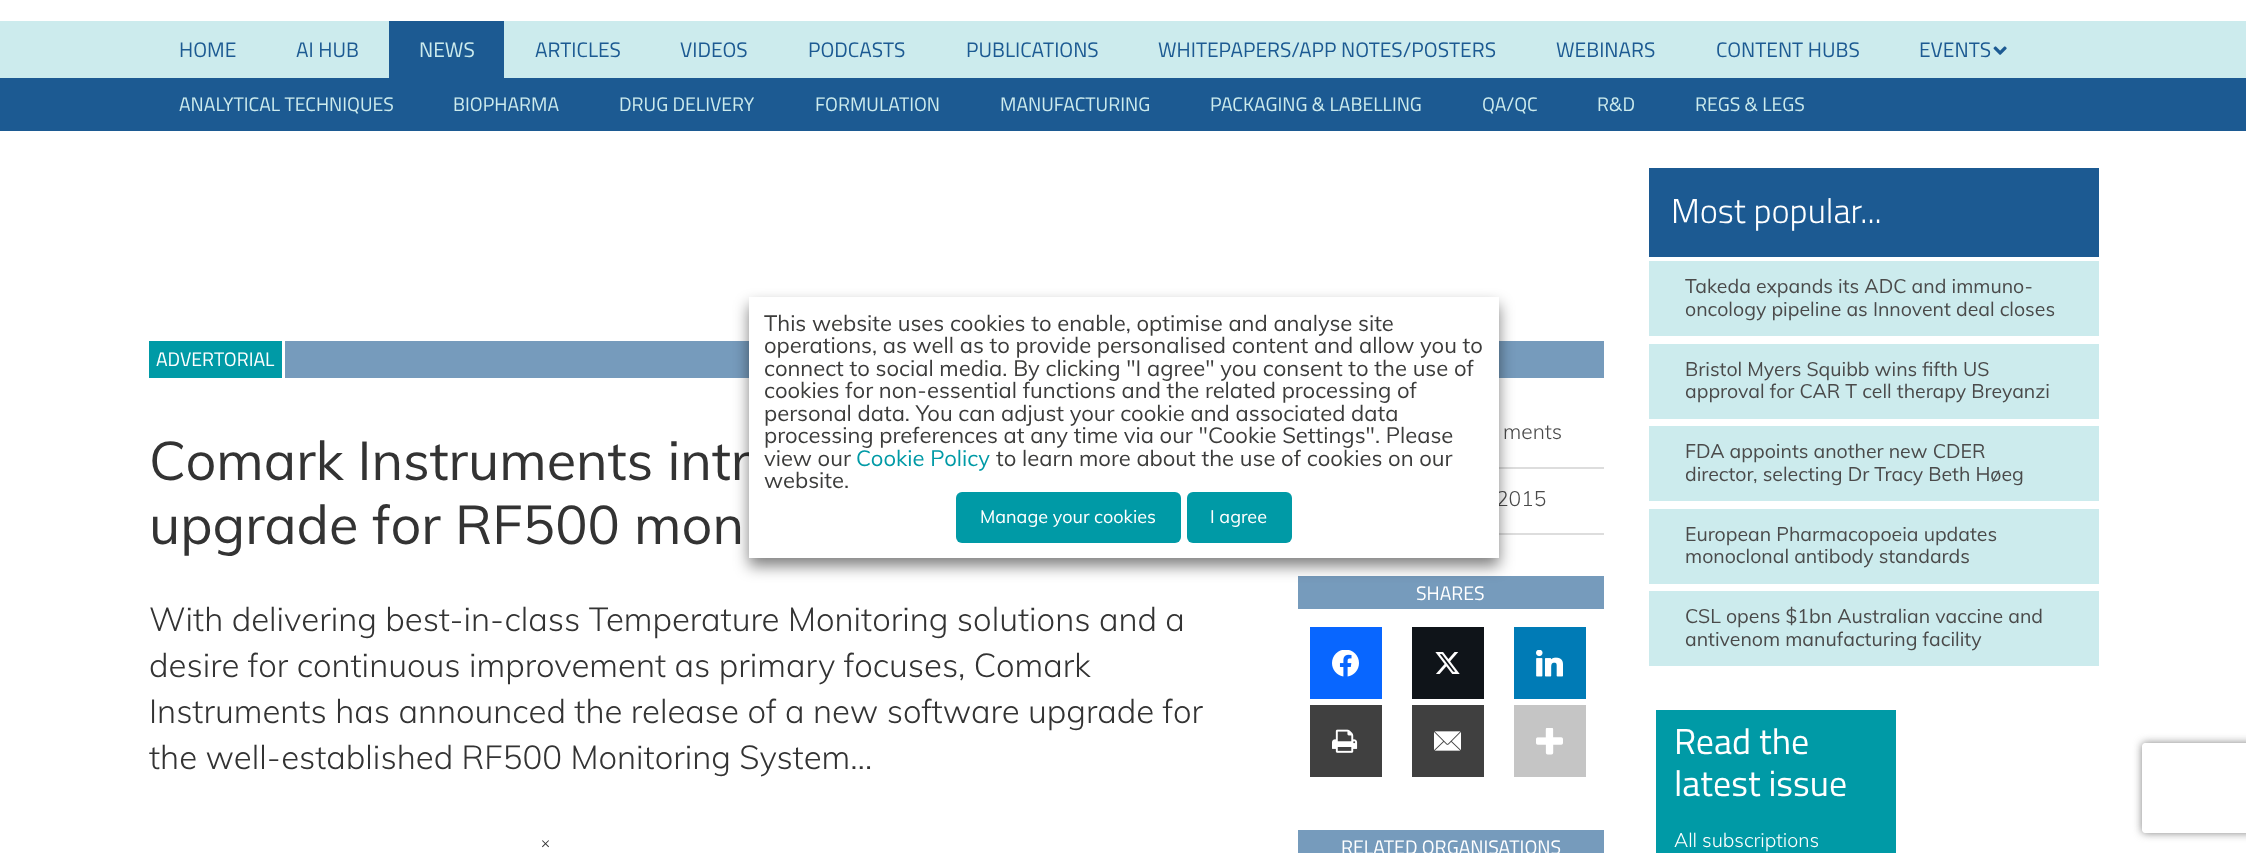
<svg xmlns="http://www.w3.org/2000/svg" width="2246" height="853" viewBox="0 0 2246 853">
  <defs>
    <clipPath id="clip1"><path d="M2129 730H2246V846H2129ZM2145 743H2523C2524.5 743 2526 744.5 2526 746V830C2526 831.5 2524.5 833 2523 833H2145C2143.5 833 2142 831.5 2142 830V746C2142 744.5 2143.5 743 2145 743Z" clip-rule="evenodd"/></clipPath>
  </defs>
  <rect width="100%" height="100%" fill="rgb(255,255,255)"/>
  <rect x="0" y="21" width="2246" height="57" fill="rgb(204,235,237)"/>
  <g font-family="Titillium Web" font-size="21" fill="rgb(28,90,146)">
    <text x="179" y="57">HOME</text>
    <text x="296" y="57">AI HUB</text>
  </g>
  <rect x="389" y="21" width="115" height="57" fill="rgb(28,90,146)"/>
  <text x="419" y="57" font-family="Titillium Web" font-size="21" fill="rgb(204,235,237)">NEWS</text>
  <g font-family="Titillium Web" font-size="21" fill="rgb(28,90,146)">
    <text x="535" y="57">ARTICLES</text>
    <text x="680" y="57">VIDEOS</text>
    <text x="808" y="57">PODCASTS</text>
    <text x="966" y="57">PUBLICATIONS</text>
    <text x="1158" y="57">WHITEPAPERS/APP NOTES/POSTERS</text>
    <text x="1556" y="57">WEBINARS</text>
    <text x="1716" y="57">CONTENT HUBS</text>
    <text x="1919" y="57">EVENTS</text>
  </g>
  <image x="1993" y="46" width="14" height="9" href="pic1.png"/>
  <rect x="0" y="78" width="2246" height="53" fill="rgb(28,90,146)"/>
  <g font-family="Titillium Web" font-size="19.5" fill="rgb(204,235,237)">
    <text x="179" y="111">ANALYTICAL TECHNIQUES</text>
    <text x="453" y="111">BIOPHARMA</text>
    <text x="619" y="111">DRUG DELIVERY</text>
    <text x="815" y="111">FORMULATION</text>
    <text x="1000" y="111">MANUFACTURING</text>
    <text x="1210" y="111">PACKAGING &amp; LABELLING</text>
    <text x="1482" y="111">QA/QC</text>
    <text x="1597" y="111">R&amp;D</text>
    <text x="1695" y="111">REGS &amp; LEGS</text>
  </g>
  <rect x="285" y="341" width="1319" height="37" fill="rgb(118,155,188)"/>
  <rect x="149" y="341" width="133" height="37" fill="rgb(0,154,166)"/>
  <text x="156" y="366" font-family="Titillium Web" font-size="19.5" fill="rgb(255,255,255)">ADVERTORIAL</text>
  <g font-family="Muli" font-size="54" fill="rgb(51,51,51)">
    <text>
      <tspan x="149" y="480">Comark Instruments intr</tspan>
      <tspan x="149" y="544">upgrade for RF500 mon</tspan>
    </text>
  </g>
  <g font-family="Muli" font-size="33" font-weight="300" fill="rgb(51,51,51)">
    <text>
      <tspan x="149" y="631">With delivering best-in-class Temperature Monitoring solutions and a</tspan>
      <tspan x="149" y="677">desire for continuous improvement as primary focuses, Comark</tspan>
      <tspan x="149" y="723">Instruments has announced the release of a new software upgrade for</tspan>
      <tspan x="149" y="769">the well-established RF500 Monitoring System…</tspan>
    </text>
  </g>
  <rect x="1499" y="467" width="105" height="2" fill="rgb(221,221,221)"/>
  <text x="1503" y="439" font-family="Muli" font-size="21" font-weight="300" fill="rgb(74,74,74)">ments</text>
  <rect x="1499" y="533" width="105" height="2" fill="rgb(221,221,221)"/>
  <text x="1496" y="506" font-family="Muli" font-size="21" font-weight="300" fill="rgb(74,74,74)">2015</text>
  <rect x="1298" y="576" width="306" height="33" fill="rgb(118,155,188)"/>
  <text x="1416" y="600" font-family="Titillium Web" font-size="19.5" fill="rgb(255,255,255)">SHARES</text>
  <rect x="1310" y="627" width="72" height="72" fill="rgb(8,102,255)"/>
  <image x="1332" y="650" width="27" height="27" href="pic2.png"/>
  <rect x="1412" y="627" width="72" height="72" fill="rgb(15,20,25)"/>
  <image x="1435" y="652" width="25" height="22" href="pic3.png"/>
  <rect x="1514" y="627" width="72" height="72" fill="rgb(0,123,182)"/>
  <image x="1536" y="650" width="27" height="27" href="pic4.png"/>
  <rect x="1310" y="705" width="72" height="72" fill="rgb(64,64,64)"/>
  <image x="1332" y="729" width="26" height="24" href="pic5.png"/>
  <rect x="1412" y="705" width="72" height="72" fill="rgb(64,64,64)"/>
  <image x="1434" y="731" width="27" height="20" href="pic6.png"/>
  <rect x="1514" y="705" width="72" height="72" fill="rgb(197,197,197)"/>
  <image x="1536" y="728" width="27" height="27" href="pic7.png"/>
  <rect x="1298" y="830" width="306" height="23" fill="rgb(118,155,188)"/>
  <text x="1341" y="854" font-family="Titillium Web" font-size="19.5" fill="rgb(255,255,255)">RELATED ORGANISATIONS</text>
  <rect x="1649" y="168" width="450" height="89" fill="rgb(28,90,146)"/>
  <text x="1671" y="223" font-family="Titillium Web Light" font-size="34.5" font-weight="300" fill="rgb(255,255,255)">Most popular...</text>
  <rect x="1649" y="261" width="450" height="75" fill="rgb(204,235,237)"/>
  <g font-family="Muli" font-size="19.5" fill="rgb(74,74,74)">
    <text>
      <tspan x="1685" y="293">Takeda expands its ADC and immuno-</tspan>
      <tspan x="1685" y="316">oncology pipeline as Innovent deal closes</tspan>
    </text>
  </g>
  <rect x="1649" y="344" width="450" height="75" fill="rgb(204,235,237)"/>
  <g font-family="Muli" font-size="19.5" fill="rgb(74,74,74)">
    <text>
      <tspan x="1685" y="376">Bristol Myers Squibb wins fifth US</tspan>
      <tspan x="1685" y="398">approval for CAR T cell therapy Breyanzi</tspan>
    </text>
  </g>
  <rect x="1649" y="426" width="450" height="75" fill="rgb(204,235,237)"/>
  <g font-family="Muli" font-size="19.5" fill="rgb(74,74,74)">
    <text>
      <tspan x="1685" y="458">FDA appoints another new CDER</tspan>
      <tspan x="1685" y="481">director, selecting Dr Tracy Beth Høeg</tspan>
    </text>
  </g>
  <rect x="1649" y="509" width="450" height="75" fill="rgb(204,235,237)"/>
  <g font-family="Muli" font-size="19.5" fill="rgb(74,74,74)">
    <text>
      <tspan x="1685" y="541">European Pharmacopoeia updates</tspan>
      <tspan x="1685" y="563">monoclonal antibody standards</tspan>
    </text>
  </g>
  <rect x="1649" y="591" width="450" height="75" fill="rgb(204,235,237)"/>
  <g font-family="Muli" font-size="19.5" fill="rgb(74,74,74)">
    <text>
      <tspan x="1685" y="623">CSL opens $1bn Australian vaccine and</tspan>
      <tspan x="1685" y="646">antivenom manufacturing facility</tspan>
    </text>
  </g>
  <rect x="1656" y="710" width="240" height="143" fill="rgb(0,154,166)"/>
  <g font-family="Titillium Web" font-size="36" fill="rgb(255,255,255)">
    <text>
      <tspan x="1674" y="754">Read the</tspan>
      <tspan x="1674" y="796">latest issue</tspan>
    </text>
  </g>
  <text x="1674" y="847" font-family="Muli" font-size="19.5" font-weight="300" fill="rgb(255,255,255)">All subscriptions</text>
  <rect x="749" y="305" width="750" height="261" fill="rgba(0,0,0,0.5)" filter="blur(7.5px)"/>
  <rect x="749" y="297" width="750" height="261" fill="rgb(255,255,255)"/>
  <g font-family="Muli" font-size="22" fill="rgb(60,60,59)">
    <text>
      <tspan x="764" y="331">This website uses cookies to enable, optimise and analyse site</tspan>
      <tspan x="764" y="353">operations, as well as to provide personalised content and allow you to</tspan>
      <tspan x="764" y="376">connect to social media. By clicking "I agree" you consent to the use of</tspan>
      <tspan x="764" y="398">cookies for non-essential functions and the related processing of</tspan>
      <tspan x="764" y="421">personal data. You can adjust your cookie and associated data</tspan>
      <tspan x="764" y="443">processing preferences at any time via our "Cookie Settings". Please</tspan>
      <tspan x="764" y="466">view our</tspan>
    </text>
  </g>
  <text x="856" y="466" font-family="Muli" font-size="22" fill="rgb(0,154,166)">Cookie Policy</text>
  <g font-family="Muli" font-size="22" fill="rgb(60,60,59)">
    <text x="996" y="466">to learn more about the use of cookies on our</text>
    <text x="764" y="488">website.</text>
  </g>
  <rect x="956" y="492" width="225" height="51" rx="6" fill="rgb(0,154,166)"/>
  <text x="980" y="523" font-family="Muli" font-size="18" fill="rgb(255,255,255)">Manage your cookies</text>
  <rect x="1187" y="492" width="105" height="51" rx="6" fill="rgb(0,154,166)"/>
  <text x="1210" y="523" font-family="Muli" font-size="18" fill="rgb(255,255,255)">I agree</text>
  <text x="541" y="848" font-family="Muli" font-size="15" fill="rgb(51,51,51)">×</text>
  <g clip-path="url(#clip1)">
    <rect x="2142" y="743" width="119" height="90" rx="3" fill="rgb(128,128,128)" filter="blur(4px)"/>
  </g>
</svg>
